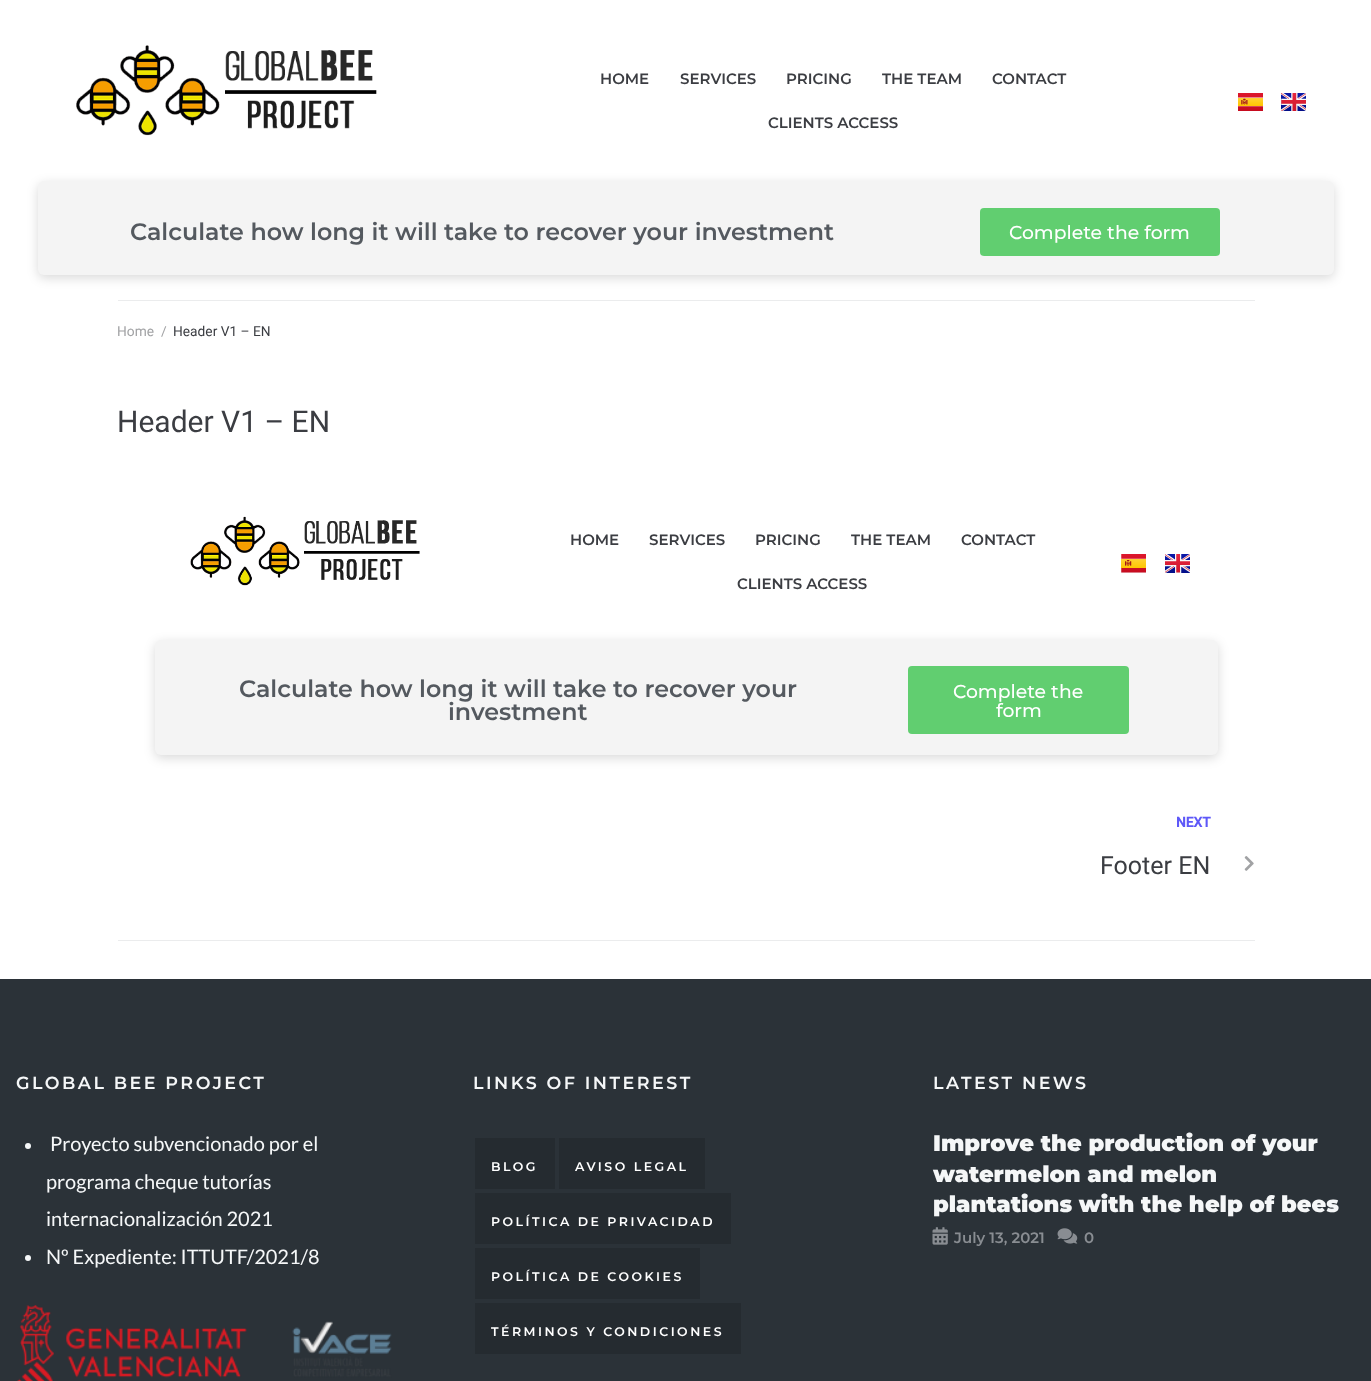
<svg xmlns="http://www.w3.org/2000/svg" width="1371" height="1381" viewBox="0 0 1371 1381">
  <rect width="100%" height="100%" fill="rgb(255,255,255)"/>
  <image x="76" y="45" width="301" height="91" href="pic1.png"/>
  <g font-family="Montserrat" font-size="15" font-weight="600" fill="rgb(59,61,66)">
    <text x="600" y="84">HOME</text>
    <text x="680" y="84">SERVICES</text>
    <text x="786" y="84">PRICING</text>
    <text x="882" y="84">THE TEAM</text>
    <text x="992" y="84">CONTACT</text>
    <text x="768" y="128">CLIENTS ACCESS</text>
  </g>
  <image x="1238" y="93" width="25" height="18" href="pic2.png"/>
  <image x="1281" y="93" width="25" height="18" href="pic3.png"/>
  <rect x="38" y="184" width="1296" height="94" rx="6" fill="rgba(0,0,0,0.15)" filter="blur(5.5px)"/>
  <rect x="38" y="181" width="1296" height="94" rx="6" fill="rgb(244,244,244)"/>
  <text x="130" y="240" font-family="Montserrat" font-size="23.75" font-weight="600" fill="rgb(84,89,95)">Calculate how long it will take to recover your investment</text>
  <rect x="980" y="208" width="240" height="48" rx="4" fill="rgb(97,206,112)"/>
  <text x="1009" y="239" font-family="Montserrat" font-size="18.75" font-weight="500" fill="rgb(255,255,255)">Complete the form</text>
  <rect x="118" y="300" width="1137" height="1" fill="rgb(235,236,237)"/>
  <g font-family="Roboto" font-size="13.75" fill="rgb(161,162,164)">
    <text x="117" y="336">Home</text>
    <text x="161" y="336">/</text>
  </g>
  <text x="173" y="336" font-family="Roboto" font-size="13.75" fill="rgb(59,61,66)">Header V1 – EN</text>
  <text x="117" y="432" font-family="Roboto" font-size="30" fill="rgb(59,61,66)">Header V1 – EN</text>
  <image x="190" y="516" width="230" height="70" href="pic4.png"/>
  <g font-family="Montserrat" font-size="15" font-weight="600" fill="rgb(59,61,66)">
    <text x="570" y="545">HOME</text>
    <text x="649" y="545">SERVICES</text>
    <text x="755" y="545">PRICING</text>
    <text x="851" y="545">THE TEAM</text>
    <text x="961" y="545">CONTACT</text>
    <text x="737" y="589">CLIENTS ACCESS</text>
  </g>
  <image x="1121" y="554" width="25" height="19" href="pic5.png"/>
  <image x="1165" y="554" width="25" height="19" href="pic6.png"/>
  <rect x="155" y="643" width="1063" height="115" rx="6" fill="rgba(0,0,0,0.15)" filter="blur(5.5px)"/>
  <rect x="155" y="640" width="1063" height="115" rx="6" fill="rgb(244,244,244)"/>
  <g font-family="Montserrat" font-size="23.75" font-weight="600" fill="rgb(84,89,95)">
    <text x="239" y="697">Calculate how long it will take to recover your</text>
    <text x="448" y="720">investment</text>
  </g>
  <rect x="908" y="666" width="221" height="68" rx="4" fill="rgb(97,206,112)"/>
  <g font-family="Montserrat" font-size="18.75" font-weight="500" fill="rgb(255,255,255)">
    <text x="953" y="698">Complete the</text>
    <text x="996" y="717">form</text>
  </g>
  <rect x="118" y="940" width="1137" height="1" fill="rgb(235,236,237)"/>
  <text x="1176" y="827" font-family="Roboto" font-size="13.75" font-weight="bold" fill="rgb(94,88,248)">NEXT</text>
  <text x="1100" y="874" font-family="Roboto" font-size="25" fill="rgb(59,61,66)">Footer EN</text>
  <image x="1244" y="856" width="10" height="15" href="pic7.png"/>
  <rect x="0" y="979" width="1371" height="402" fill="rgb(43,50,56)"/>
  <text x="16" y="1089" font-family="Montserrat" font-size="17.5" font-weight="600" letter-spacing="2.5" fill="rgb(245,247,248)">GLOBAL BEE PROJECT</text>
  <circle cx="28" cy="1146" r="3" fill="rgb(245,247,248)"/>
  <g font-family="Lato" font-size="20" fill="rgb(245,247,248)">
    <text x="50" y="1151">Proyecto subvencionado por el</text>
    <text>
      <tspan x="46" y="1189">programa cheque tutorías</tspan>
      <tspan x="46" y="1226">internacionalización 2021</tspan>
    </text>
  </g>
  <circle cx="28" cy="1258" r="3" fill="rgb(245,247,248)"/>
  <text x="46" y="1264" font-family="Lato" font-size="20" fill="rgb(245,247,248)">Nº Expediente: ITTUTF/2021/8</text>
  <image x="17" y="1305" width="375" height="76" href="pic8.png"/>
  <text x="473" y="1089" font-family="Montserrat" font-size="17.5" font-weight="600" letter-spacing="2.5" fill="rgb(245,247,248)">LINKS OF INTEREST</text>
  <rect x="475" y="1138" width="80" height="51" fill="rgb(37,43,48)"/>
  <text x="491" y="1171" font-family="Montserrat" font-size="12.5" font-weight="600" letter-spacing="2.5" fill="rgb(255,255,255)">BLOG</text>
  <rect x="559" y="1138" width="146" height="51" fill="rgb(37,43,48)"/>
  <text x="575" y="1171" font-family="Montserrat" font-size="12.5" font-weight="600" letter-spacing="2.5" fill="rgb(255,255,255)">AVISO LEGAL</text>
  <rect x="475" y="1193" width="256" height="51" fill="rgb(37,43,48)"/>
  <text x="491" y="1226" font-family="Montserrat" font-size="12.5" font-weight="600" letter-spacing="2.5" fill="rgb(255,255,255)">POLÍTICA DE PRIVACIDAD</text>
  <rect x="475" y="1248" width="225" height="51" fill="rgb(37,43,48)"/>
  <text x="491" y="1281" font-family="Montserrat" font-size="12.5" font-weight="600" letter-spacing="2.5" fill="rgb(255,255,255)">POLÍTICA DE COOKIES</text>
  <rect x="475" y="1303" width="266" height="51" fill="rgb(37,43,48)"/>
  <text x="491" y="1336" font-family="Montserrat" font-size="12.5" font-weight="600" letter-spacing="2.5" fill="rgb(255,255,255)">TÉRMINOS Y CONDICIONES</text>
  <text x="933" y="1089" font-family="Montserrat" font-size="17.5" font-weight="600" letter-spacing="2.5" fill="rgb(245,247,248)">LATEST NEWS</text>
  <g font-family="Montserrat" font-size="22.5" font-weight="900" fill="rgb(245,247,248)">
    <text>
      <tspan x="933" y="1151">Improve the production of your</tspan>
      <tspan x="933" y="1182">watermelon and melon</tspan>
      <tspan x="933" y="1212">plantations with the help of bees</tspan>
    </text>
  </g>
  <image x="932" y="1227" width="16" height="18" href="pic9.png"/>
  <text x="954" y="1243" font-family="Montserrat" font-size="15" font-weight="600" fill="rgb(137,141,146)">July 13, 2021</text>
  <image x="1057" y="1228" width="21" height="16" href="pic10.png"/>
  <text x="1084" y="1243" font-family="Montserrat" font-size="15" font-weight="600" fill="rgb(137,141,146)">0</text>
</svg>
